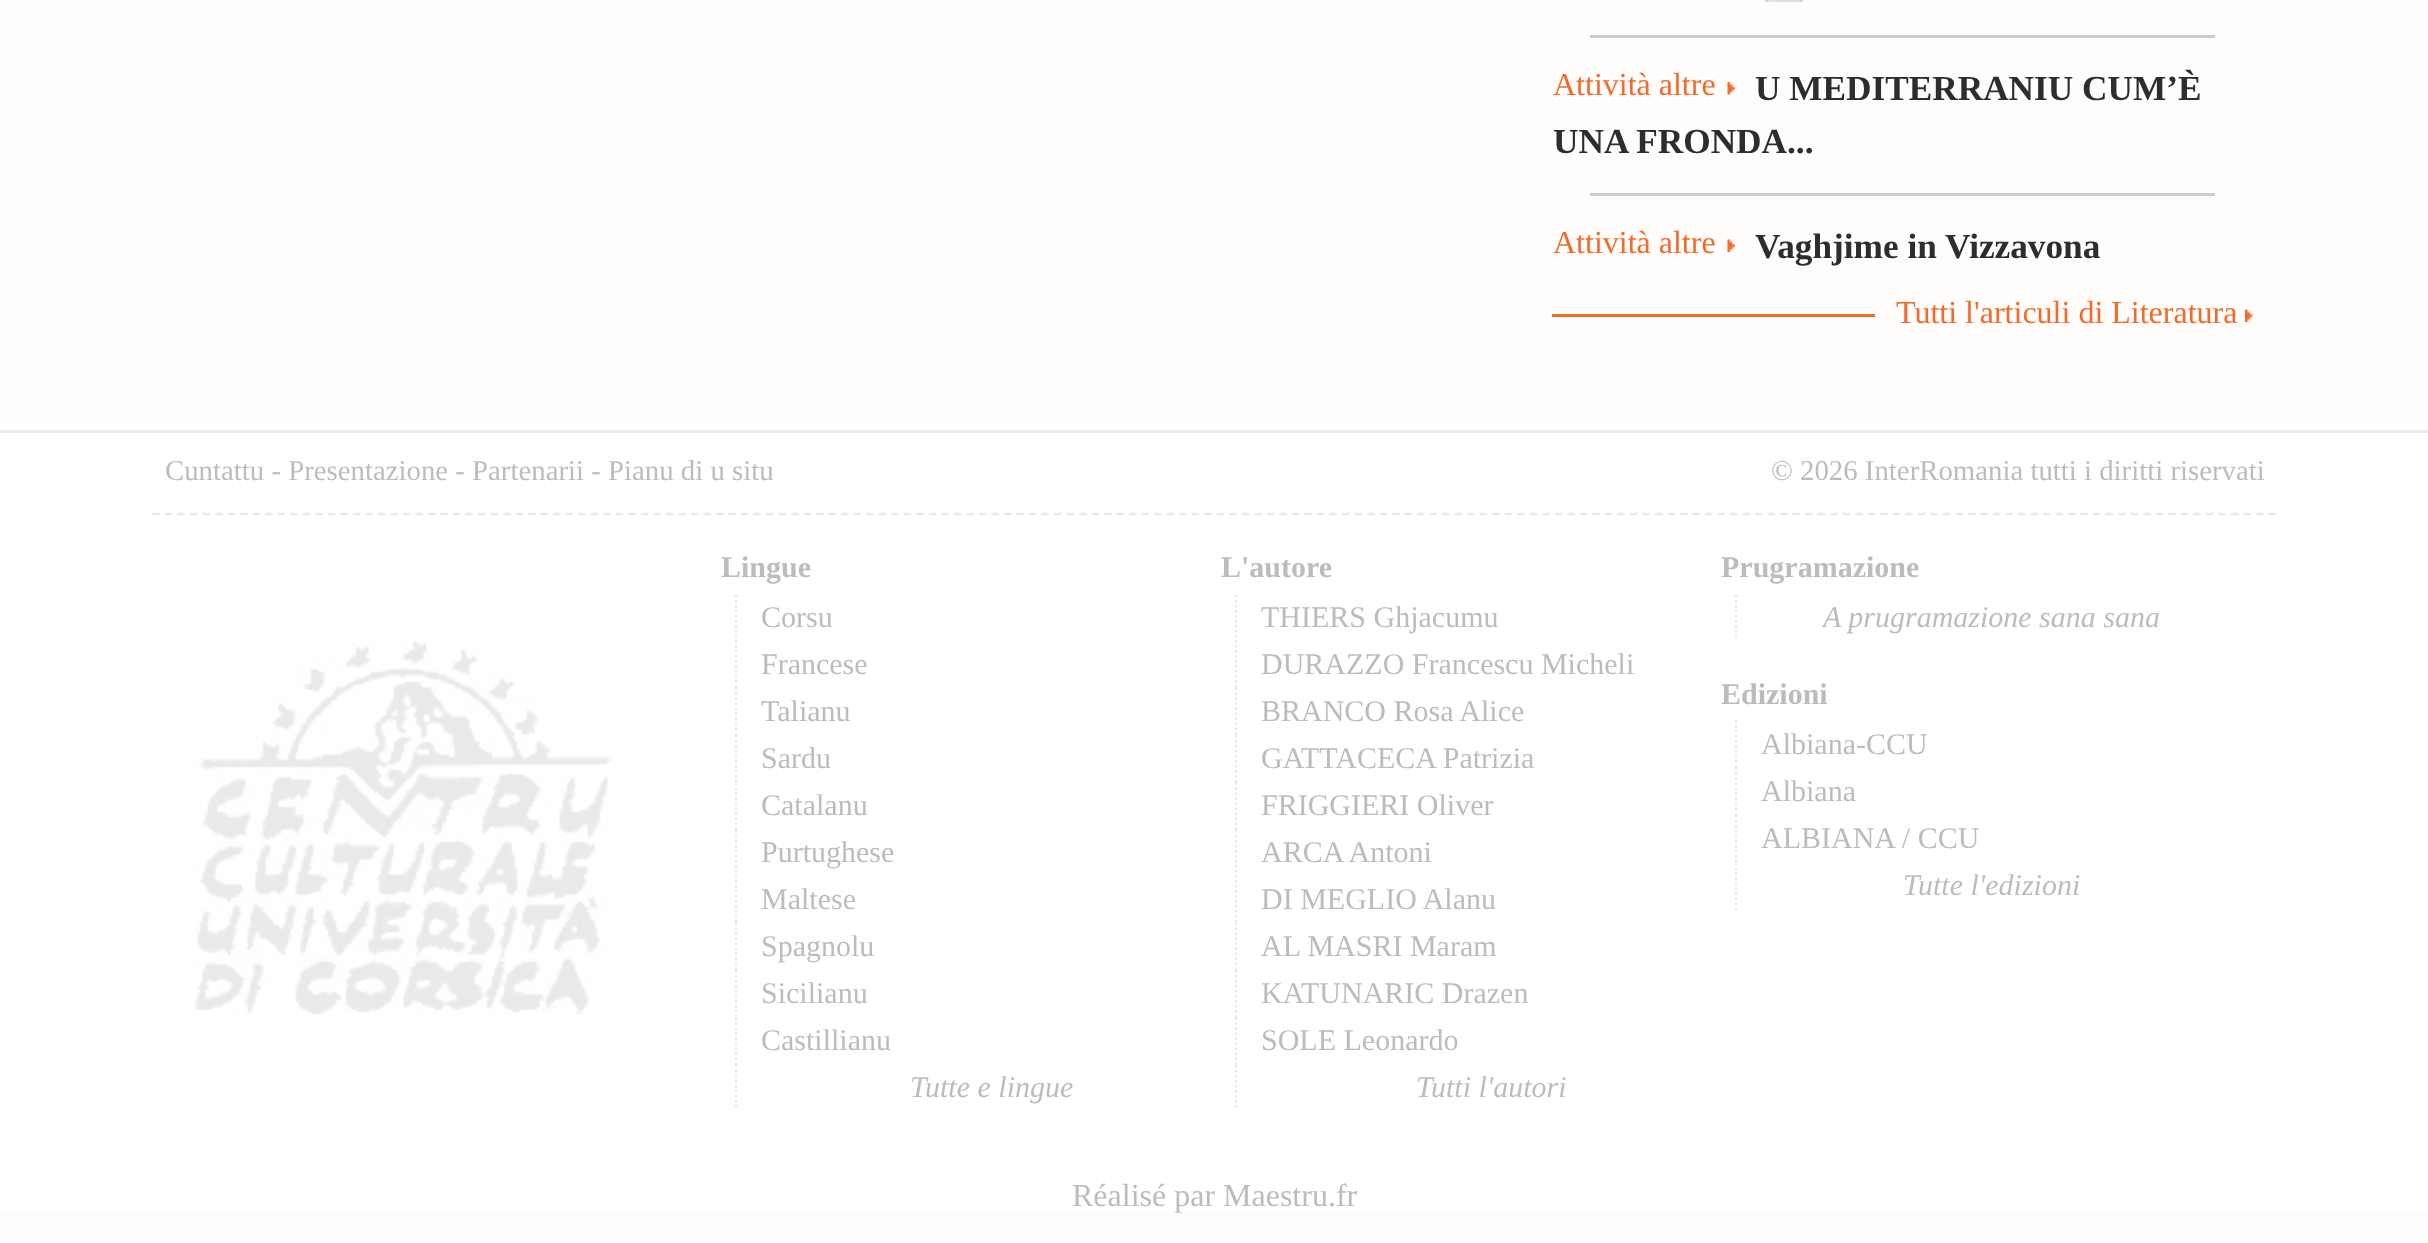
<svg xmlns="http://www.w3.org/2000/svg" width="2428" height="1243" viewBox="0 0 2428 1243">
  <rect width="100%" height="100%" fill="rgb(255,253,252)"/>
  <image x="1764" y="0" width="39" height="2" href="pic1.png"/>
  <rect x="1590" y="35" width="625" height="3" fill="rgb(204,204,204)"/>
  <g font-family="Liberation Serif" font-size="35.25" font-weight="bold" fill="rgb(45,45,45)">
    <text x="1755" y="100">U MEDITERRANIU CUM’È</text>
    <text x="1553" y="153">UNA FRONDA...</text>
  </g>
  <text x="1553" y="95" font-family="Liberation Serif" font-size="32" fill="rgb(242,107,43)">Attività altre</text>
  <image x="1727" y="82" width="8" height="13" href="pic2.png"/>
  <rect x="1590" y="193" width="625" height="3" fill="rgb(204,204,204)"/>
  <text x="1553" y="253" font-family="Liberation Serif" font-size="32" fill="rgb(242,107,43)">Attività altre</text>
  <image x="1727" y="239" width="8" height="13" href="pic3.png"/>
  <text x="1755" y="258" font-family="Liberation Serif" font-size="35.25" font-weight="bold" fill="rgb(45,45,45)">Vaghjime in Vizzavona</text>
  <rect x="1552" y="314" width="323" height="3" fill="rgb(242,107,43)"/>
  <text x="1896" y="323" font-family="Liberation Serif" font-size="32" fill="rgb(242,107,43)">Tutti l'articuli di Literatura</text>
  <image x="2245" y="309" width="8" height="13" href="pic4.png"/>
  <rect x="0" y="433" width="2428" height="780" fill="rgb(255,255,255)"/>
  <rect x="0" y="430" width="2428" height="3" fill="rgb(234,234,234)"/>
  <path d="M152.5 514H2277.5" fill="none" stroke="rgb(234,234,234)" stroke-width="2.5" stroke-dasharray="7.5 5.02"/>
  <g font-family="Liberation Serif" font-size="28.8" fill="rgb(188,188,188)">
    <text x="165" y="480">Cuntattu - Presentazione - Partenarii - Pianu di u situ</text>
    <text x="1771" y="480">© 2026 InterRomania tutti i diritti riservati</text>
  </g>
  <image x="194" y="640" width="418" height="375" href="pic5.png"/>
  <text x="721" y="577" font-family="Liberation Serif" font-size="30" font-weight="bold" fill="rgb(188,188,188)">Lingue</text>
  <path d="M736 595V640" fill="none" stroke="rgb(234,234,234)" stroke-width="2.5" stroke-dasharray="2.5 2.5"/>
  <text x="761" y="627" font-family="Liberation Serif" font-size="30" fill="rgb(188,188,188)">Corsu</text>
  <path d="M736 640V687.5" fill="none" stroke="rgb(234,234,234)" stroke-width="2.5" stroke-dasharray="2.5 2.5"/>
  <text x="761" y="674" font-family="Liberation Serif" font-size="30" fill="rgb(188,188,188)">Francese</text>
  <path d="M736 687.5V735" fill="none" stroke="rgb(234,234,234)" stroke-width="2.5" stroke-dasharray="2.5 2.5"/>
  <text x="761" y="721" font-family="Liberation Serif" font-size="30" fill="rgb(188,188,188)">Talianu</text>
  <path d="M736 735V782.5" fill="none" stroke="rgb(234,234,234)" stroke-width="2.5" stroke-dasharray="2.5 2.5"/>
  <text x="761" y="768" font-family="Liberation Serif" font-size="30" fill="rgb(188,188,188)">Sardu</text>
  <path d="M736 782.5V830" fill="none" stroke="rgb(234,234,234)" stroke-width="2.5" stroke-dasharray="2.5 2.5"/>
  <text x="761" y="815" font-family="Liberation Serif" font-size="30" fill="rgb(188,188,188)">Catalanu</text>
  <path d="M736 830V875" fill="none" stroke="rgb(234,234,234)" stroke-width="2.5" stroke-dasharray="2.5 2.5"/>
  <text x="761" y="862" font-family="Liberation Serif" font-size="30" fill="rgb(188,188,188)">Purtughese</text>
  <path d="M736 875V922.5" fill="none" stroke="rgb(234,234,234)" stroke-width="2.5" stroke-dasharray="2.5 2.5"/>
  <text x="761" y="909" font-family="Liberation Serif" font-size="30" fill="rgb(188,188,188)">Maltese</text>
  <path d="M736 922.5V970" fill="none" stroke="rgb(234,234,234)" stroke-width="2.5" stroke-dasharray="2.5 2.5"/>
  <text x="761" y="956" font-family="Liberation Serif" font-size="30" fill="rgb(188,188,188)">Spagnolu</text>
  <path d="M736 970V1017.5" fill="none" stroke="rgb(234,234,234)" stroke-width="2.5" stroke-dasharray="2.5 2.5"/>
  <text x="761" y="1003" font-family="Liberation Serif" font-size="30" fill="rgb(188,188,188)">Sicilianu</text>
  <path d="M736 1017.5V1065" fill="none" stroke="rgb(234,234,234)" stroke-width="2.5" stroke-dasharray="2.5 2.5"/>
  <text x="761" y="1050" font-family="Liberation Serif" font-size="30" fill="rgb(188,188,188)">Castillianu</text>
  <path d="M736 1065V1110" fill="none" stroke="rgb(234,234,234)" stroke-width="2.5" stroke-dasharray="2.5 2.5"/>
  <text x="910" y="1097" font-family="Liberation Serif" font-size="30" font-style="italic" fill="rgb(188,188,188)">Tutte e lingue</text>
  <text x="1221" y="577" font-family="Liberation Serif" font-size="30" font-weight="bold" fill="rgb(188,188,188)">L'autore</text>
  <path d="M1236 595V640" fill="none" stroke="rgb(234,234,234)" stroke-width="2.5" stroke-dasharray="2.5 2.5"/>
  <text x="1261" y="627" font-family="Liberation Serif" font-size="30" fill="rgb(188,188,188)">THIERS Ghjacumu</text>
  <path d="M1236 640V687.5" fill="none" stroke="rgb(234,234,234)" stroke-width="2.5" stroke-dasharray="2.5 2.5"/>
  <text x="1261" y="674" font-family="Liberation Serif" font-size="30" fill="rgb(188,188,188)">DURAZZO Francescu Micheli</text>
  <path d="M1236 687.5V735" fill="none" stroke="rgb(234,234,234)" stroke-width="2.5" stroke-dasharray="2.5 2.5"/>
  <text x="1261" y="721" font-family="Liberation Serif" font-size="30" fill="rgb(188,188,188)">BRANCO Rosa Alice</text>
  <path d="M1236 735V782.5" fill="none" stroke="rgb(234,234,234)" stroke-width="2.5" stroke-dasharray="2.5 2.5"/>
  <text x="1261" y="768" font-family="Liberation Serif" font-size="30" fill="rgb(188,188,188)">GATTACECA Patrizia</text>
  <path d="M1236 782.5V830" fill="none" stroke="rgb(234,234,234)" stroke-width="2.5" stroke-dasharray="2.5 2.5"/>
  <text x="1261" y="815" font-family="Liberation Serif" font-size="30" fill="rgb(188,188,188)">FRIGGIERI Oliver</text>
  <path d="M1236 830V875" fill="none" stroke="rgb(234,234,234)" stroke-width="2.5" stroke-dasharray="2.5 2.5"/>
  <text x="1261" y="862" font-family="Liberation Serif" font-size="30" fill="rgb(188,188,188)">ARCA Antoni</text>
  <path d="M1236 875V922.5" fill="none" stroke="rgb(234,234,234)" stroke-width="2.5" stroke-dasharray="2.5 2.5"/>
  <text x="1261" y="909" font-family="Liberation Serif" font-size="30" fill="rgb(188,188,188)">DI MEGLIO Alanu</text>
  <path d="M1236 922.5V970" fill="none" stroke="rgb(234,234,234)" stroke-width="2.5" stroke-dasharray="2.5 2.5"/>
  <text x="1261" y="956" font-family="Liberation Serif" font-size="30" fill="rgb(188,188,188)">AL MASRI Maram</text>
  <path d="M1236 970V1017.5" fill="none" stroke="rgb(234,234,234)" stroke-width="2.5" stroke-dasharray="2.5 2.5"/>
  <text x="1261" y="1003" font-family="Liberation Serif" font-size="30" fill="rgb(188,188,188)">KATUNARIC Drazen</text>
  <path d="M1236 1017.5V1065" fill="none" stroke="rgb(234,234,234)" stroke-width="2.5" stroke-dasharray="2.5 2.5"/>
  <text x="1261" y="1050" font-family="Liberation Serif" font-size="30" fill="rgb(188,188,188)">SOLE Leonardo</text>
  <path d="M1236 1065V1110" fill="none" stroke="rgb(234,234,234)" stroke-width="2.5" stroke-dasharray="2.5 2.5"/>
  <text x="1416" y="1097" font-family="Liberation Serif" font-size="30" font-style="italic" fill="rgb(188,188,188)">Tutti l'autori</text>
  <text x="1721" y="577" font-family="Liberation Serif" font-size="30" font-weight="bold" fill="rgb(188,188,188)">Prugramazione</text>
  <path d="M1736 595V640" fill="none" stroke="rgb(234,234,234)" stroke-width="2.5" stroke-dasharray="2.5 2.5"/>
  <text x="1823" y="627" font-family="Liberation Serif" font-size="30" font-style="italic" fill="rgb(188,188,188)">A prugramazione sana sana</text>
  <text x="1721" y="704" font-family="Liberation Serif" font-size="30" font-weight="bold" fill="rgb(188,188,188)">Edizioni</text>
  <path d="M1736 720V767.5" fill="none" stroke="rgb(234,234,234)" stroke-width="2.5" stroke-dasharray="2.5 2.5"/>
  <text x="1761" y="754" font-family="Liberation Serif" font-size="30" fill="rgb(188,188,188)">Albiana-CCU</text>
  <path d="M1736 767.5V815" fill="none" stroke="rgb(234,234,234)" stroke-width="2.5" stroke-dasharray="2.5 2.5"/>
  <text x="1761" y="801" font-family="Liberation Serif" font-size="30" fill="rgb(188,188,188)">Albiana</text>
  <path d="M1736 815V862.5" fill="none" stroke="rgb(234,234,234)" stroke-width="2.5" stroke-dasharray="2.5 2.5"/>
  <text x="1761" y="848" font-family="Liberation Serif" font-size="30" fill="rgb(188,188,188)">ALBIANA / CCU</text>
  <path d="M1736 862.5V910" fill="none" stroke="rgb(234,234,234)" stroke-width="2.5" stroke-dasharray="2.5 2.5"/>
  <text x="1903" y="895" font-family="Liberation Serif" font-size="30" font-style="italic" fill="rgb(188,188,188)">Tutte l'edizioni</text>
  <text x="1072" y="1206" font-family="Liberation Serif" font-size="32" fill="rgb(188,188,188)">Réalisé par Maestru.fr</text>
</svg>
